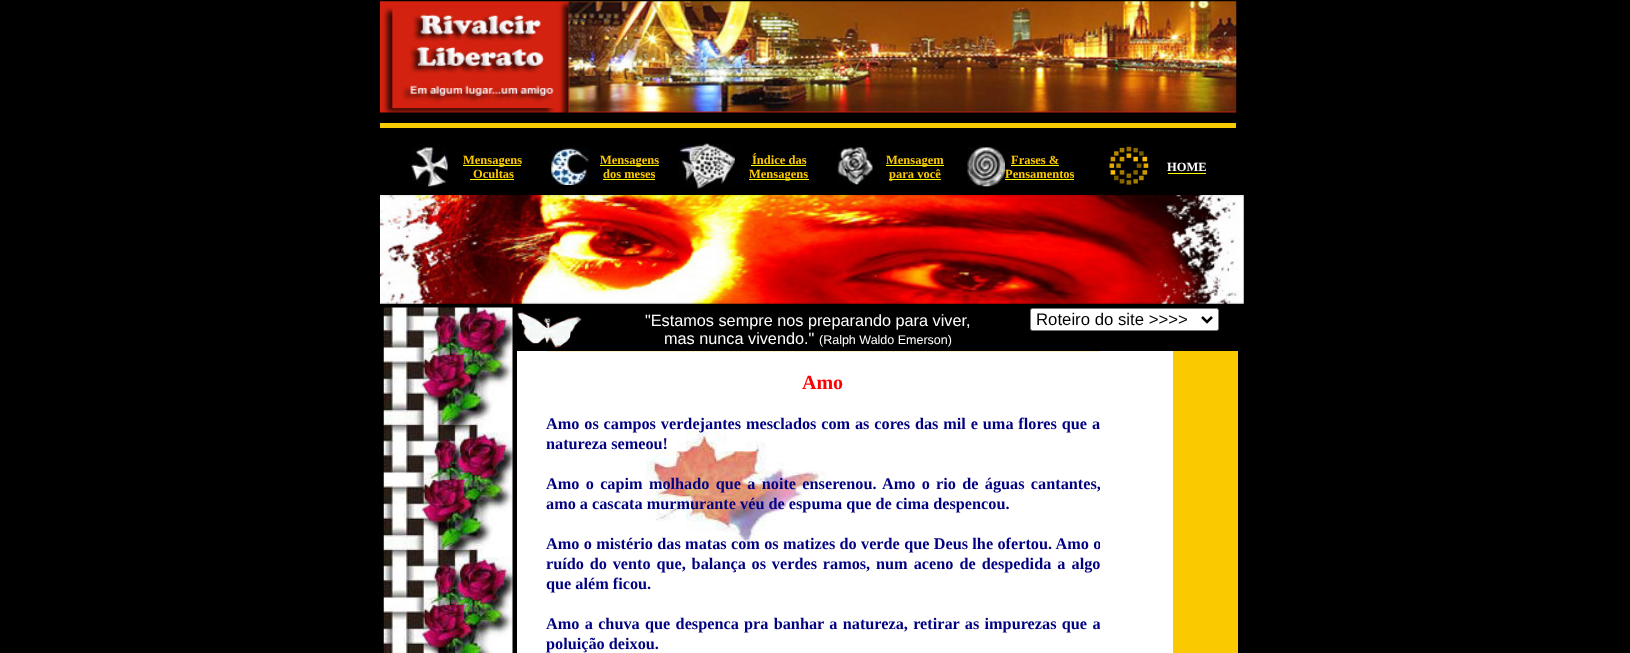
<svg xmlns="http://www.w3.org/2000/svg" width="1630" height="653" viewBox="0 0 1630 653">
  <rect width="100%" height="100%" fill="rgb(0,0,0)"/>
  <image x="380" y="1" width="857" height="112" href="pic1.png"/>
  <rect x="380" y="123" width="856" height="5" fill="rgb(251,201,0)"/>
  <image x="411" y="147" width="37" height="40" href="pic2.png"/>
  <rect x="463" y="165" width="58" height="1" fill="rgb(255,255,0)"/>
  <g font-family="Liberation Serif" font-size="12.5" font-weight="bold" fill="rgb(251,201,0)">
    <text x="463" y="164">Mensagens</text>
    <text x="473" y="178">Ocultas</text>
  </g>
  <rect x="470" y="179" width="44" height="1" fill="rgb(255,255,0)"/>
  <image x="551" y="148" width="38" height="37" href="pic3.png"/>
  <rect x="600" y="165" width="59" height="1" fill="rgb(255,255,0)"/>
  <g font-family="Liberation Serif" font-size="12.5" font-weight="bold" fill="rgb(251,201,0)">
    <text x="600" y="164">Mensagens</text>
    <text x="603" y="178">dos meses</text>
  </g>
  <rect x="603" y="179" width="52" height="1" fill="rgb(255,255,0)"/>
  <image x="678" y="143" width="57" height="46" href="pic4.png"/>
  <text x="752" y="164" font-family="Liberation Serif" font-size="12.5" font-weight="bold" fill="rgb(251,201,0)">Índice das</text>
  <rect x="751" y="165" width="55" height="1" fill="rgb(255,255,0)"/>
  <rect x="749" y="179" width="60" height="1" fill="rgb(255,255,0)"/>
  <text x="749" y="178" font-family="Liberation Serif" font-size="12.5" font-weight="bold" fill="rgb(251,201,0)">Mensagens</text>
  <image x="837" y="147" width="36" height="38" href="pic5.png"/>
  <rect x="886" y="165" width="58" height="1" fill="rgb(255,255,0)"/>
  <text x="886" y="164" font-family="Liberation Serif" font-size="12.5" font-weight="bold" fill="rgb(251,201,0)">Mensagem</text>
  <rect x="889" y="179" width="52" height="1" fill="rgb(255,255,0)"/>
  <text x="889" y="178" font-family="Liberation Serif" font-size="12.5" font-weight="bold" fill="rgb(251,201,0)">para você</text>
  <image x="967" y="147" width="38" height="40" href="pic6.png"/>
  <text x="1011" y="164" font-family="Liberation Serif" font-size="12.5" font-weight="bold" fill="rgb(251,201,0)">Frases &amp;</text>
  <rect x="1011" y="165" width="48" height="1" fill="rgb(255,255,0)"/>
  <text x="1005" y="178" font-family="Liberation Serif" font-size="12.5" font-weight="bold" fill="rgb(251,201,0)">Pensamentos</text>
  <rect x="1005" y="179" width="69" height="1" fill="rgb(255,255,0)"/>
  <image x="1109" y="146" width="40" height="39" href="pic7.png"/>
  <text x="1167" y="171" font-family="Liberation Serif" font-size="12.5" font-weight="bold" fill="rgb(255,255,255)">HOME</text>
  <rect x="1168" y="173" width="38" height="1" fill="rgb(255,255,0)"/>
  <image x="380" y="195" width="864" height="109" href="pic8.png"/>
  <image x="383" y="307" width="130" height="346" href="pic9.png"/>
  <image x="517" y="312" width="65" height="36" href="pic10.png"/>
  <g font-family="Liberation Sans" font-size="16.25" fill="rgb(255,255,255)">
    <text x="645" y="326">"Estamos sempre nos preparando para viver,</text>
    <text x="664" y="344">mas nunca vivendo."</text>
  </g>
  <text x="819" y="344" font-family="Liberation Sans" font-size="12.5" fill="rgb(255,255,255)">(Ralph Waldo Emerson)</text>
  <rect x="1030.5" y="308.5" width="188" height="22" rx="2" fill="rgb(255,255,255)" stroke="rgb(118,118,118)"/>
  <path d="M1202 317L1207 322L1212 317" fill="none" stroke="rgb(0,0,0)" stroke-width="2.5"/>
  <text x="1036" y="325" font-family="Liberation Sans" font-size="16.75" fill="rgb(0,0,0)">Roteiro do site &gt;&gt;&gt;&gt;</text>
  <rect x="547" y="351" width="691" height="302" fill="rgb(251,201,0)"/>
  <rect x="517" y="351" width="30" height="302" fill="rgb(255,255,255)"/>
  <image x="547" y="351" width="553" height="302" href="pic11.png"/>
  <text x="802" y="389" font-family="Liberation Serif" font-size="20" font-weight="bold" fill="rgb(255,0,0)">Amo</text>
  <g font-family="Liberation Serif" font-size="16.25" font-weight="bold" fill="rgb(0,0,128)">
    <text>
      <tspan x="546" y="429" word-spacing="0.8">Amo os campos verdejantes mesclados com as cores das mil e uma flores que a</tspan>
      <tspan x="546" y="449">natureza semeou!</tspan>
    </text>
    <text>
      <tspan x="546" y="489" word-spacing="2.25">Amo o capim molhado que a noite enserenou. Amo o rio de águas cantantes,</tspan>
      <tspan x="546" y="509">amo a cascata murmurante véu de espuma que de cima despencou.</tspan>
    </text>
    <text>
      <tspan x="546" y="549" word-spacing="0.25">Amo o mistério das matas com os matizes do verde que Deus lhe ofertou. Amo o</tspan>
      <tspan x="546" y="569" word-spacing="1.75">ruído do vento que, balança os verdes ramos,</tspan>
    </text>
    <text x="876" y="569" word-spacing="2">num aceno de despedida a algo</text>
    <text x="546" y="589">que além ficou.</text>
    <text x="546" y="629" word-spacing="1.25">Amo a chuva que despenca</text>
    <text x="744" y="629" word-spacing="1.25">pra banhar a natureza, retirar as impurezas que a</text>
    <text x="546" y="649">poluição deixou.</text>
  </g>
  <rect x="1100" y="351" width="73" height="302" fill="rgb(255,255,255)"/>
</svg>
